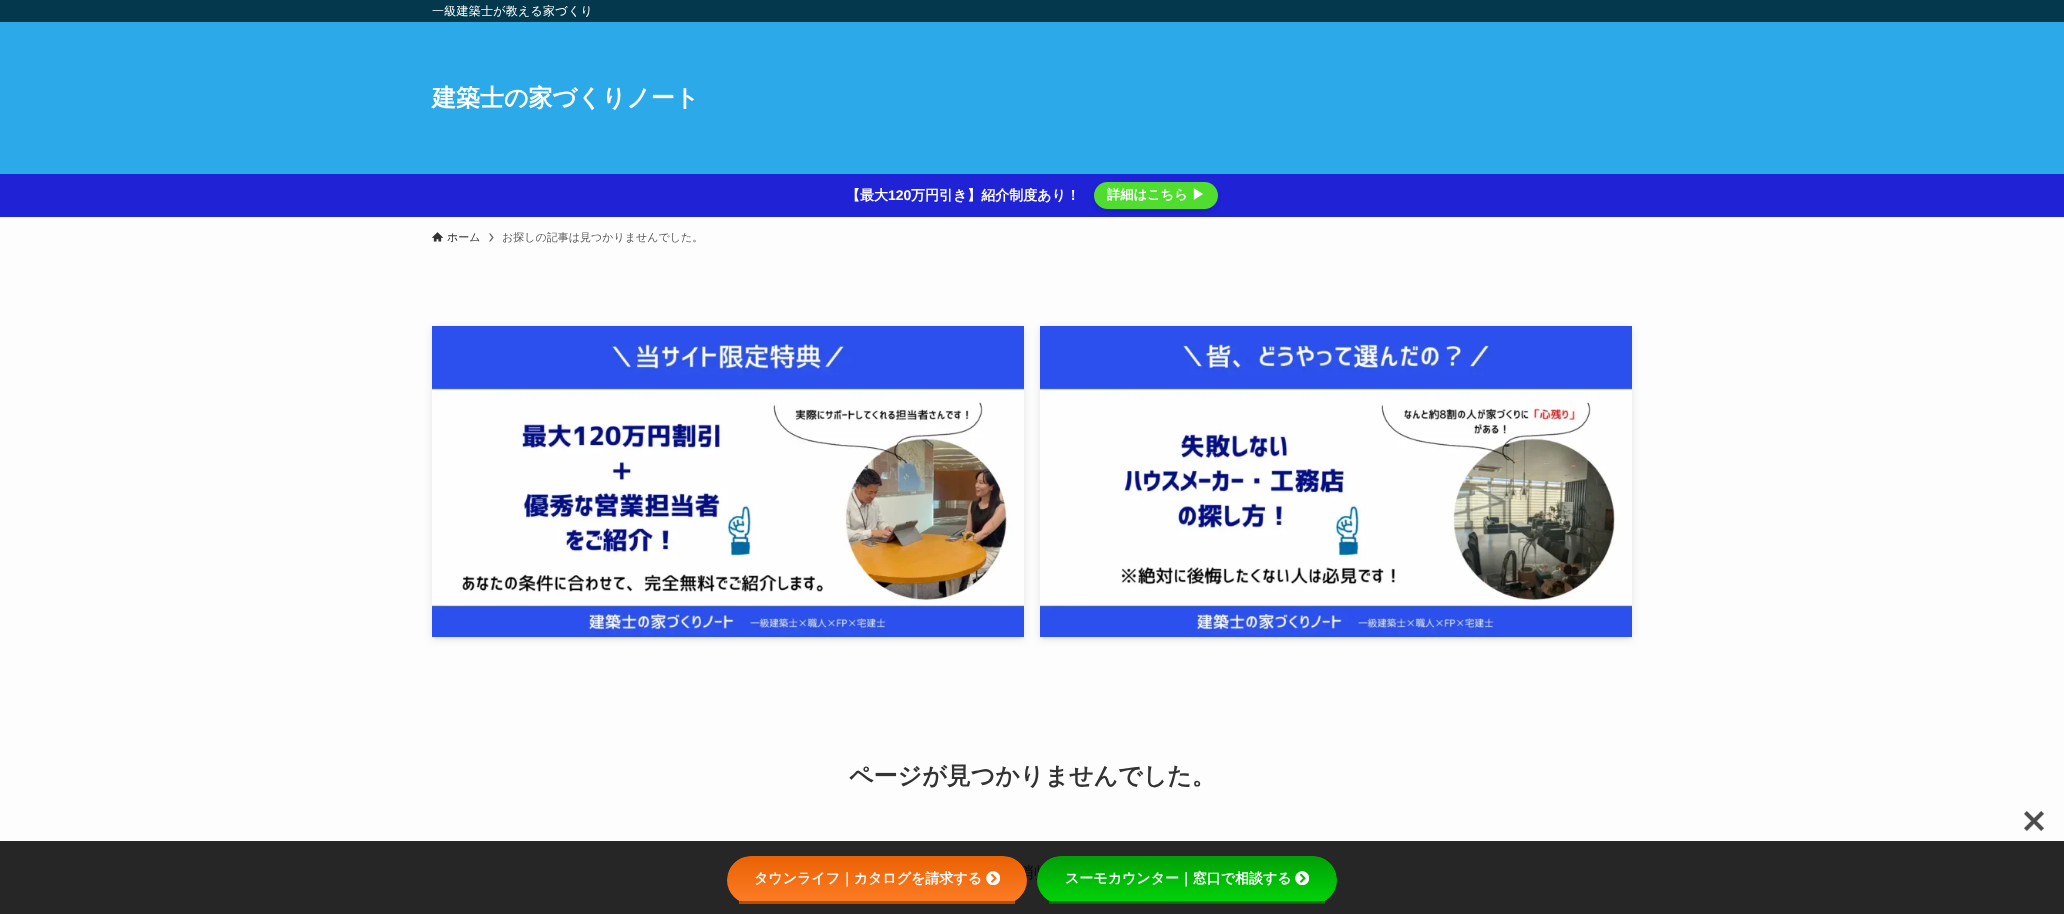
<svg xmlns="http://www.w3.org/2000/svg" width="2064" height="914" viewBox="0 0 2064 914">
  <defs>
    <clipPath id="clip1"><rect x="727" y="856" width="300" height="48" rx="24"/></clipPath>
    <linearGradient id="g1" gradientUnits="userSpaceOnUse" x1="877" y1="856" x2="877" y2="901"><stop offset="0" stop-color="rgb(234,97,3)"/><stop offset="1" stop-color="rgb(252,124,36)"/></linearGradient>
    <clipPath id="clip2"><rect x="1037" y="856" width="300" height="48" rx="24"/></clipPath>
    <linearGradient id="g2" gradientUnits="userSpaceOnUse" x1="1187" y1="856" x2="1187" y2="901"><stop offset="0" stop-color="rgb(0,159,7)"/><stop offset="1" stop-color="rgb(0,210,9)"/></linearGradient>
  </defs>
  <rect width="100%" height="100%" fill="rgb(253,253,253)"/>
  <rect x="0" y="841" width="2064" height="73" fill="rgb(38,38,38)"/>
  <rect x="0" y="22" width="2064" height="152" fill="rgb(44,169,232)"/>
  <rect x="0" y="0" width="2064" height="22" fill="rgb(4,56,76)"/>
  <text x="432" y="15" font-family="WenQuanYi Zen Hei" font-size="12" font-weight="500" letter-spacing="0.25" fill="rgb(255,255,255)">一級建築士が教える家づくり</text>
  <text x="432" y="106" font-family="WenQuanYi Zen Hei" font-size="24" font-weight="bold" fill="rgb(255,255,255)">建築士の家づくりノート</text>
  <rect x="0" y="174" width="2064" height="43" fill="rgb(31,34,213)"/>
  <text x="846" y="200" font-family="WenQuanYi Zen Hei" font-size="14" font-weight="bold" fill="rgb(255,255,255)">【最大</text>
  <text x="888" y="200" font-family="Liberation Sans" font-size="14" font-weight="bold" fill="rgb(255,255,255)">120</text>
  <text x="911" y="200" font-family="WenQuanYi Zen Hei" font-size="14" font-weight="bold" fill="rgb(255,255,255)">万円引き】紹介制度あり！</text>
  <rect x="1094" y="184" width="124" height="27" rx="13.5" fill="rgba(0,0,0,0.12)" filter="blur(2px)"/>
  <rect x="1094" y="182" width="124" height="27" rx="13.5" fill="rgb(80,221,48)"/>
  <text x="1107" y="199" font-family="WenQuanYi Zen Hei" font-size="13.25" font-weight="bold" fill="rgb(255,255,255)">詳細はこちら ▶</text>
  <image x="432" y="232" width="11" height="10" href="pic1.png"/>
  <text x="447" y="241" font-family="WenQuanYi Zen Hei" font-size="11" font-weight="500" fill="rgb(51,51,51)">ホーム</text>
  <path d="M490.5 233.5H489L492 237.5L489 241.5H490.5L493.5 237.5Z" fill="rgb(91,91,91)"/>
  <text x="502" y="241" font-family="WenQuanYi Zen Hei" font-size="11" font-weight="500" fill="rgb(91,91,91)">お探しの記事は見つかりませんでした。</text>
  <rect x="436" y="334" width="584" height="303" fill="rgba(0,0,0,0.1)" filter="blur(2px)"/>
  <rect x="432" y="328" width="592" height="311" fill="rgba(0,0,0,0.1)" filter="blur(4px)"/>
  <image x="432" y="326" width="592" height="311" href="pic2.png"/>
  <rect x="1044" y="334" width="584" height="303" fill="rgba(0,0,0,0.1)" filter="blur(2px)"/>
  <rect x="1040" y="328" width="592" height="311" fill="rgba(0,0,0,0.1)" filter="blur(4px)"/>
  <image x="1040" y="326" width="592" height="311" href="pic3.png"/>
  <text x="849" y="784" font-family="WenQuanYi Zen Hei" font-size="24" font-weight="bold" fill="rgb(51,51,51)">ページが見つかりませんでした。</text>
  <text x="1024" y="878" font-family="WenQuanYi Zen Hei" font-size="16" font-weight="500" fill="rgb(8,8,8)">削</text>
  <image x="2024" y="810" width="20" height="21" href="pic4.png"/>
  <g clip-path="url(#clip1)">
    <path d="M751 856H1003C1016.5 856 1027 866.5 1027 880V901H727V880C727 866.5 737.5 856 751 856Z" fill="url(#g1)"/>
  </g>
  <rect x="739" y="901" width="276" height="3" fill="rgb(184,76,2)"/>
  <text x="754" y="883" font-family="WenQuanYi Zen Hei" font-size="14" font-weight="bold" fill="rgb(255,255,255)">タウンライフ｜カタログを請求する</text>
  <image x="986" y="871" width="14" height="14" href="pic5.png"/>
  <g clip-path="url(#clip2)">
    <path d="M1061 856H1313C1326.5 856 1337 866.5 1337 880V901H1037V880C1037 866.5 1047.5 856 1061 856Z" fill="url(#g2)"/>
  </g>
  <rect x="1049" y="901" width="276" height="3" fill="rgb(0,108,5)"/>
  <text x="1065" y="883" font-family="WenQuanYi Zen Hei" font-size="14" font-weight="bold" fill="rgb(255,255,255)">スーモカウンター｜窓口で相談する</text>
  <image x="1295" y="871" width="14" height="14" href="pic6.png"/>
</svg>
